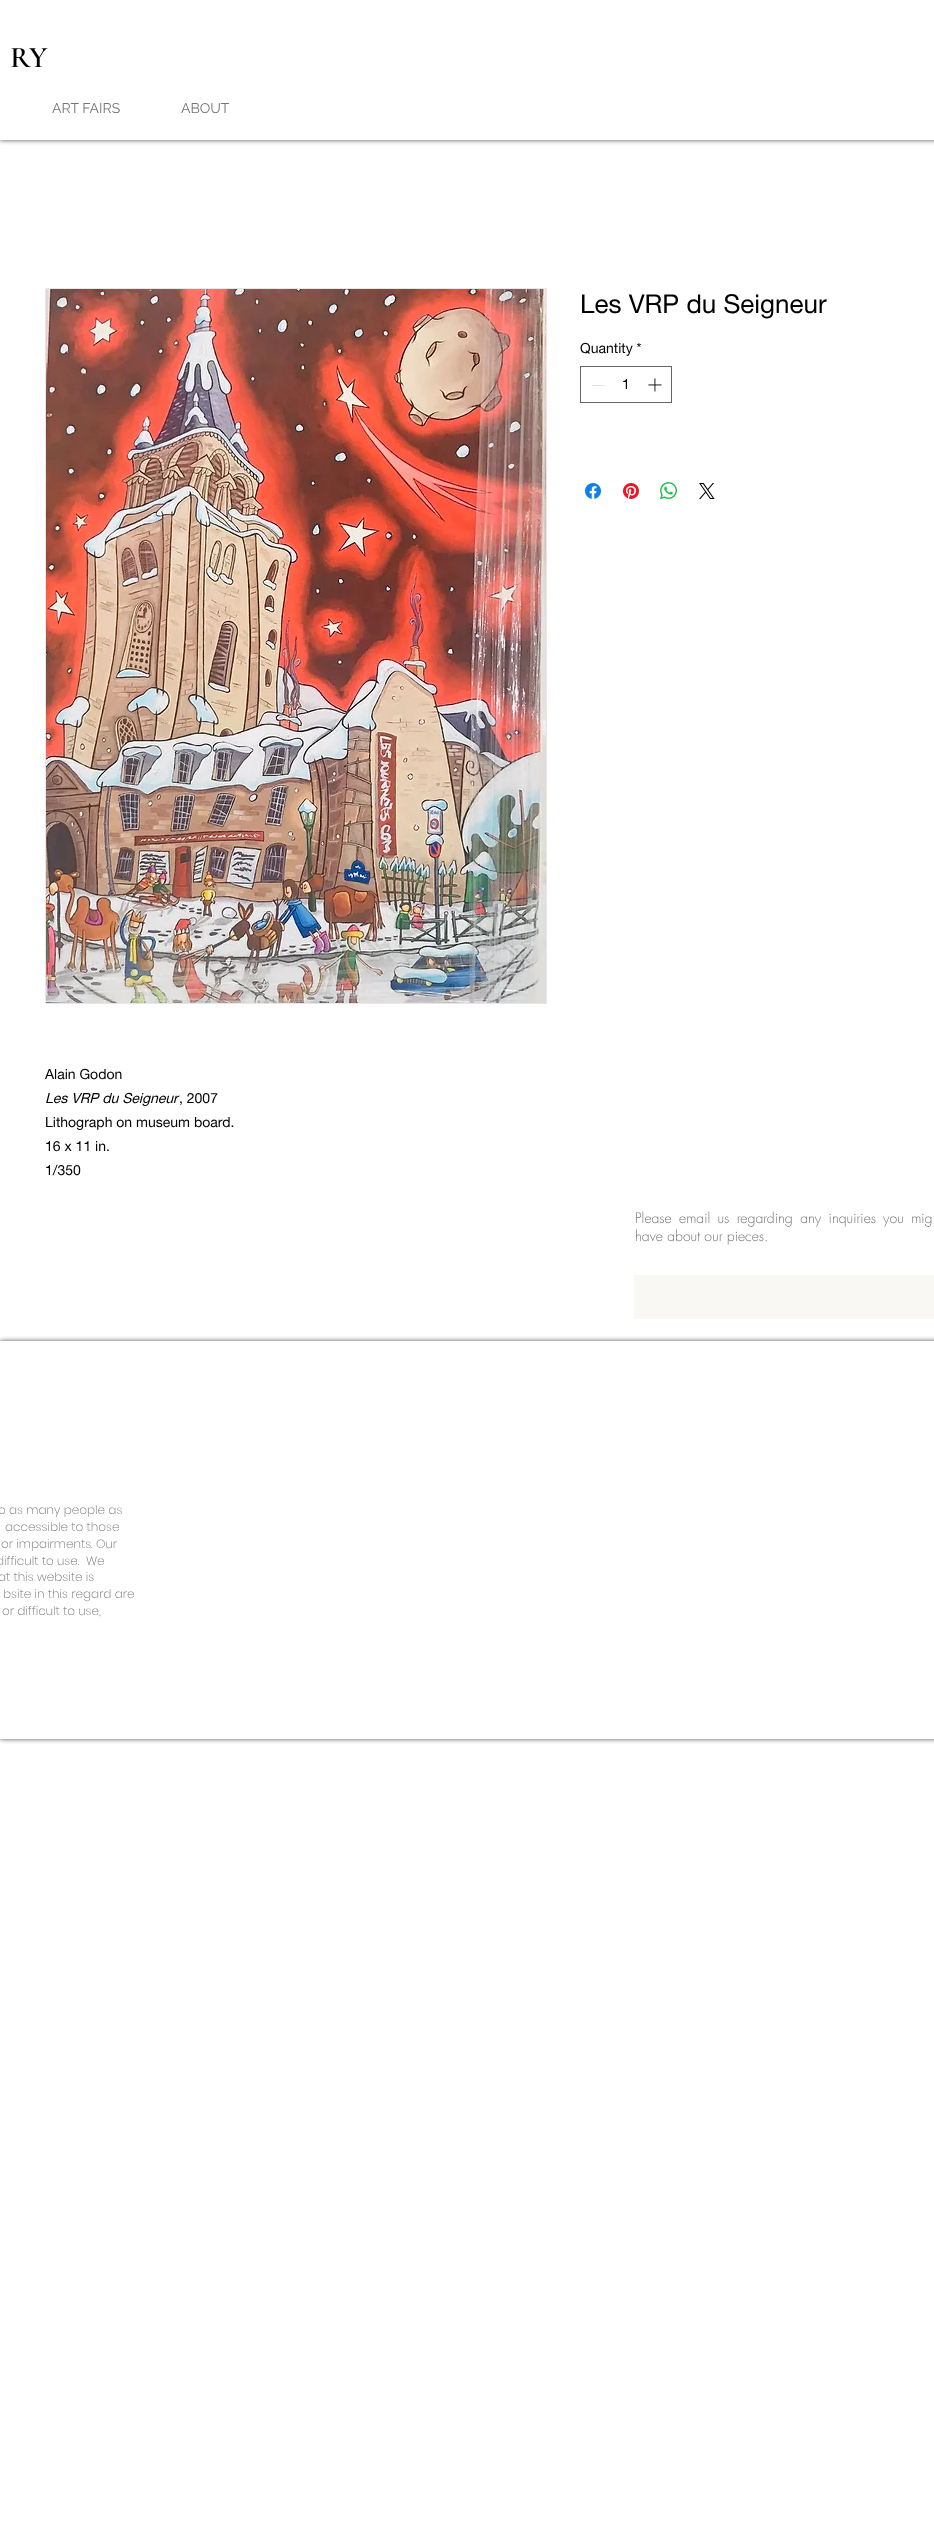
<svg xmlns="http://www.w3.org/2000/svg" width="934" height="2545" viewBox="0 0 934 2545">
  <defs>
    <clipPath id="clip1"><rect x="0" y="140" width="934" height="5"/></clipPath>
    <clipPath id="clip2"><path d="M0 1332H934V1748H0ZM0 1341H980V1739H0Z" clip-rule="evenodd"/></clipPath>
  </defs>
  <rect width="100%" height="100%" fill="rgb(255,255,255)"/>
  <g clip-path="url(#clip1)">
    <rect x="0" y="0" width="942" height="140" fill="rgba(0,0,0,0.7)" filter="blur(2.5px)"/>
  </g>
  <text x="10" y="67" font-family="Cormorant Garamond" font-size="30" font-weight="600" fill="rgb(0,0,0)">RY</text>
  <g font-family="Raleway" font-size="14" fill="rgb(117,117,117)">
    <text x="52" y="113">ART FAIRS</text>
    <text x="181" y="113">ABOUT</text>
  </g>
  <text x="580" y="313" font-family="helvetica neue" font-size="26" fill="rgb(0,0,0)">Les VRP du Seigneur</text>
  <text x="580" y="353" font-family="helvetica neue" font-size="14" fill="rgb(0,0,0)">Quantity *</text>
  <rect x="580.5" y="366.5" width="91" height="36" fill="none" stroke="rgb(102,102,102)"/>
  <rect x="592" y="385" width="13" height="1" fill="rgb(227,227,227)"/>
  <text x="622" y="389" font-family="helvetica neue" font-size="14" fill="rgb(0,0,0)">1</text>
  <image x="648" y="378" width="14" height="14" href="pic1.png"/>
  <image x="585" y="483" width="16" height="16" href="pic2.png"/>
  <image x="623" y="483" width="16" height="16" href="pic3.png"/>
  <image x="660" y="482" width="17" height="17" href="pic4.png"/>
  <image x="699" y="483" width="16" height="16" href="pic5.png"/>
  <rect x="45.5" y="288.5" width="501" height="715" fill="none" stroke="rgb(232,230,230)"/>
  <image x="46" y="289" width="500" height="714" href="pic6.png"/>
  <text x="45" y="1079" font-family="helvetica neue" font-size="14" fill="rgb(0,0,0)">Alain Godon</text>
  <text x="45" y="1103" font-family="helvetica neue" font-size="14" font-style="italic" fill="rgb(0,0,0)">Les VRP du Seigneur</text>
  <g font-family="helvetica neue" font-size="14" fill="rgb(0,0,0)">
    <text x="179" y="1103">, 2007</text>
    <text>
      <tspan x="45" y="1127">Lithograph on museum board.</tspan>
      <tspan x="45" y="1151">16 x 11 in.</tspan>
      <tspan x="45" y="1175">1/350</tspan>
    </text>
  </g>
  <g font-family="futura" font-size="14" font-weight="300" fill="rgb(117,117,117)">
    <text>
      <tspan x="635" y="1223" word-spacing="3">Please email us regarding any inquiries you mig</tspan>
      <tspan x="635" y="1241">have about our pieces.</tspan>
    </text>
  </g>
  <rect x="634" y="1275" width="300" height="44" fill="rgb(250,248,242)"/>
  <g clip-path="url(#clip2)">
    <rect x="0" y="1341" width="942" height="398" fill="rgba(0,0,0,0.7)" filter="blur(2.5px)"/>
  </g>
  <g font-family="Poppins" font-size="12" font-weight="200" fill="rgb(117,117,117)">
    <text x="-2" y="1514">o as many people as</text>
    <text x="5" y="1531">accessible to those</text>
    <text x="1" y="1548">or impairments. Our</text>
    <text x="-4" y="1565" xml:space="preserve">difficult to use.  We</text>
    <text x="-2" y="1581">at this website is</text>
    <text x="3" y="1598">bsite in this regard are</text>
    <text x="2" y="1615">or difficult to use,</text>
  </g>
</svg>
